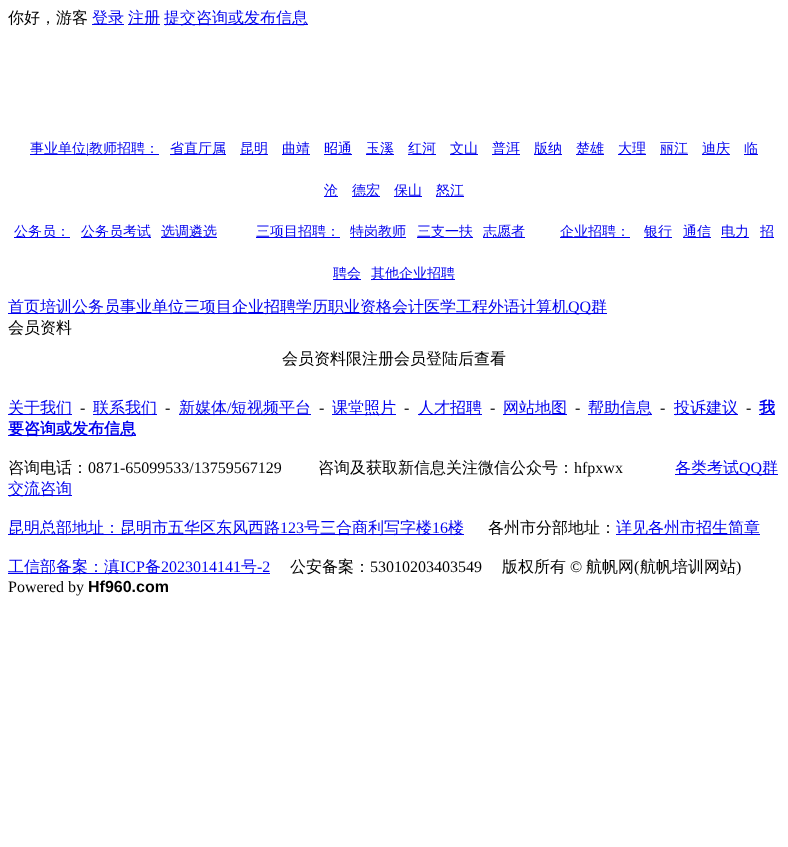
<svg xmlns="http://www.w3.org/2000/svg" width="788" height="847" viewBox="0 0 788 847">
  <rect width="100%" height="100%" fill="rgb(255,255,255)"/>
  <text x="8" y="23" font-family="WenQuanYi Zen Hei" font-size="16" font-weight="500" fill="rgb(0,0,0)">你好，游客</text>
  <rect x="92" y="24" width="32" height="1" fill="rgb(0,0,238)"/>
  <text x="92" y="23" font-family="WenQuanYi Zen Hei" font-size="16" font-weight="500" fill="rgb(0,0,238)">登录</text>
  <rect x="128" y="24" width="32" height="1" fill="rgb(0,0,238)"/>
  <text x="128" y="23" font-family="WenQuanYi Zen Hei" font-size="16" font-weight="500" fill="rgb(0,0,238)">注册</text>
  <rect x="164" y="24" width="144" height="1" fill="rgb(0,0,238)"/>
  <text x="164" y="23" font-family="WenQuanYi Zen Hei" font-size="16" font-weight="500" fill="rgb(0,0,238)">提交咨询或发布信息</text>
  <rect x="30" y="154" width="129" height="1" fill="rgb(0,0,238)"/>
  <text x="30" y="153" font-family="WenQuanYi Zen Hei" font-size="14" font-weight="500" fill="rgb(0,0,238)">事业单位</text>
  <text x="86" y="153" font-family="Liberation Serif" font-size="14" fill="rgb(0,0,238)">|</text>
  <text x="89" y="153" font-family="WenQuanYi Zen Hei" font-size="14" font-weight="500" fill="rgb(0,0,238)">教师招聘：</text>
  <rect x="170" y="154" width="56" height="1" fill="rgb(0,0,238)"/>
  <text x="170" y="153" font-family="WenQuanYi Zen Hei" font-size="14" font-weight="500" fill="rgb(0,0,238)">省直厅属</text>
  <rect x="240" y="154" width="28" height="1" fill="rgb(0,0,238)"/>
  <text x="240" y="153" font-family="WenQuanYi Zen Hei" font-size="14" font-weight="500" fill="rgb(0,0,238)">昆明</text>
  <rect x="282" y="154" width="28" height="1" fill="rgb(0,0,238)"/>
  <text x="282" y="153" font-family="WenQuanYi Zen Hei" font-size="14" font-weight="500" fill="rgb(0,0,238)">曲靖</text>
  <rect x="324" y="154" width="28" height="1" fill="rgb(0,0,238)"/>
  <text x="324" y="153" font-family="WenQuanYi Zen Hei" font-size="14" font-weight="500" fill="rgb(0,0,238)">昭通</text>
  <rect x="366" y="154" width="28" height="1" fill="rgb(0,0,238)"/>
  <text x="366" y="153" font-family="WenQuanYi Zen Hei" font-size="14" font-weight="500" fill="rgb(0,0,238)">玉溪</text>
  <rect x="408" y="154" width="28" height="1" fill="rgb(0,0,238)"/>
  <text x="408" y="153" font-family="WenQuanYi Zen Hei" font-size="14" font-weight="500" fill="rgb(0,0,238)">红河</text>
  <rect x="450" y="154" width="28" height="1" fill="rgb(0,0,238)"/>
  <text x="450" y="153" font-family="WenQuanYi Zen Hei" font-size="14" font-weight="500" fill="rgb(0,0,238)">文山</text>
  <rect x="492" y="154" width="28" height="1" fill="rgb(0,0,238)"/>
  <text x="492" y="153" font-family="WenQuanYi Zen Hei" font-size="14" font-weight="500" fill="rgb(0,0,238)">普洱</text>
  <rect x="534" y="154" width="28" height="1" fill="rgb(0,0,238)"/>
  <text x="534" y="153" font-family="WenQuanYi Zen Hei" font-size="14" font-weight="500" fill="rgb(0,0,238)">版纳</text>
  <rect x="576" y="154" width="28" height="1" fill="rgb(0,0,238)"/>
  <text x="576" y="153" font-family="WenQuanYi Zen Hei" font-size="14" font-weight="500" fill="rgb(0,0,238)">楚雄</text>
  <rect x="618" y="154" width="28" height="1" fill="rgb(0,0,238)"/>
  <text x="618" y="153" font-family="WenQuanYi Zen Hei" font-size="14" font-weight="500" fill="rgb(0,0,238)">大理</text>
  <rect x="660" y="154" width="28" height="1" fill="rgb(0,0,238)"/>
  <text x="660" y="153" font-family="WenQuanYi Zen Hei" font-size="14" font-weight="500" fill="rgb(0,0,238)">丽江</text>
  <rect x="702" y="154" width="28" height="1" fill="rgb(0,0,238)"/>
  <text x="702" y="153" font-family="WenQuanYi Zen Hei" font-size="14" font-weight="500" fill="rgb(0,0,238)">迪庆</text>
  <rect x="744" y="154" width="14" height="1" fill="rgb(0,0,238)"/>
  <text x="744" y="153" font-family="WenQuanYi Zen Hei" font-size="14" font-weight="500" fill="rgb(0,0,238)">临</text>
  <rect x="324" y="196" width="14" height="1" fill="rgb(0,0,238)"/>
  <text x="324" y="195" font-family="WenQuanYi Zen Hei" font-size="14" font-weight="500" fill="rgb(0,0,238)">沧</text>
  <rect x="352" y="196" width="28" height="1" fill="rgb(0,0,238)"/>
  <text x="352" y="195" font-family="WenQuanYi Zen Hei" font-size="14" font-weight="500" fill="rgb(0,0,238)">德宏</text>
  <rect x="394" y="196" width="28" height="1" fill="rgb(0,0,238)"/>
  <text x="394" y="195" font-family="WenQuanYi Zen Hei" font-size="14" font-weight="500" fill="rgb(0,0,238)">保山</text>
  <rect x="436" y="196" width="28" height="1" fill="rgb(0,0,238)"/>
  <text x="436" y="195" font-family="WenQuanYi Zen Hei" font-size="14" font-weight="500" fill="rgb(0,0,238)">怒江</text>
  <rect x="14" y="237" width="56" height="1" fill="rgb(0,0,238)"/>
  <text x="14" y="236" font-family="WenQuanYi Zen Hei" font-size="14" font-weight="500" fill="rgb(0,0,238)">公务员：</text>
  <rect x="81" y="237" width="70" height="1" fill="rgb(0,0,238)"/>
  <text x="81" y="236" font-family="WenQuanYi Zen Hei" font-size="14" font-weight="500" fill="rgb(0,0,238)">公务员考试</text>
  <rect x="161" y="237" width="56" height="1" fill="rgb(0,0,238)"/>
  <text x="161" y="236" font-family="WenQuanYi Zen Hei" font-size="14" font-weight="500" fill="rgb(0,0,238)">选调遴选</text>
  <rect x="256" y="237" width="84" height="1" fill="rgb(0,0,238)"/>
  <text x="256" y="236" font-family="WenQuanYi Zen Hei" font-size="14" font-weight="500" fill="rgb(0,0,238)">三项目招聘：</text>
  <rect x="350" y="237" width="56" height="1" fill="rgb(0,0,238)"/>
  <text x="350" y="236" font-family="WenQuanYi Zen Hei" font-size="14" font-weight="500" fill="rgb(0,0,238)">特岗教师</text>
  <rect x="417" y="237" width="56" height="1" fill="rgb(0,0,238)"/>
  <text x="417" y="236" font-family="WenQuanYi Zen Hei" font-size="14" font-weight="500" fill="rgb(0,0,238)">三支一扶</text>
  <rect x="483" y="237" width="42" height="1" fill="rgb(0,0,238)"/>
  <text x="483" y="236" font-family="WenQuanYi Zen Hei" font-size="14" font-weight="500" fill="rgb(0,0,238)">志愿者</text>
  <rect x="560" y="237" width="70" height="1" fill="rgb(0,0,238)"/>
  <text x="560" y="236" font-family="WenQuanYi Zen Hei" font-size="14" font-weight="500" fill="rgb(0,0,238)">企业招聘：</text>
  <rect x="644" y="237" width="28" height="1" fill="rgb(0,0,238)"/>
  <text x="644" y="236" font-family="WenQuanYi Zen Hei" font-size="14" font-weight="500" fill="rgb(0,0,238)">银行</text>
  <rect x="683" y="237" width="28" height="1" fill="rgb(0,0,238)"/>
  <text x="683" y="236" font-family="WenQuanYi Zen Hei" font-size="14" font-weight="500" fill="rgb(0,0,238)">通信</text>
  <rect x="721" y="237" width="28" height="1" fill="rgb(0,0,238)"/>
  <text x="721" y="236" font-family="WenQuanYi Zen Hei" font-size="14" font-weight="500" fill="rgb(0,0,238)">电力</text>
  <rect x="760" y="237" width="14" height="1" fill="rgb(0,0,238)"/>
  <text x="760" y="236" font-family="WenQuanYi Zen Hei" font-size="14" font-weight="500" fill="rgb(0,0,238)">招</text>
  <rect x="333" y="279" width="28" height="1" fill="rgb(0,0,238)"/>
  <text x="333" y="278" font-family="WenQuanYi Zen Hei" font-size="14" font-weight="500" fill="rgb(0,0,238)">聘会</text>
  <rect x="371" y="279" width="84" height="1" fill="rgb(0,0,238)"/>
  <text x="371" y="278" font-family="WenQuanYi Zen Hei" font-size="14" font-weight="500" fill="rgb(0,0,238)">其他企业招聘</text>
  <rect x="8" y="313" width="599" height="1" fill="rgb(0,0,238)"/>
  <text x="8" y="312" font-family="WenQuanYi Zen Hei" font-size="16" font-weight="500" fill="rgb(0,0,238)">首页培训公务员事业单位三项目企业招聘学历职业资格会计医学工程外语计算机</text>
  <text x="568" y="312" font-family="Liberation Serif" font-size="16" fill="rgb(0,0,238)">QQ</text>
  <text x="591" y="312" font-family="WenQuanYi Zen Hei" font-size="16" font-weight="500" fill="rgb(0,0,238)">群</text>
  <g font-family="WenQuanYi Zen Hei" font-size="16" font-weight="500" fill="rgb(0,0,0)">
    <text x="8" y="333">会员资料</text>
    <text x="282" y="364">会员资料限注册会员登陆后查看</text>
  </g>
  <rect x="8" y="414" width="64" height="1" fill="rgb(0,0,238)"/>
  <text x="8" y="413" font-family="WenQuanYi Zen Hei" font-size="16" font-weight="500" fill="rgb(0,0,238)">关于我们</text>
  <text x="80" y="413" font-family="Liberation Serif" font-size="16" fill="rgb(0,0,0)">-</text>
  <rect x="93" y="414" width="64" height="1" fill="rgb(0,0,238)"/>
  <text x="93" y="413" font-family="WenQuanYi Zen Hei" font-size="16" font-weight="500" fill="rgb(0,0,238)">联系我们</text>
  <text x="165" y="413" font-family="Liberation Serif" font-size="16" fill="rgb(0,0,0)">-</text>
  <rect x="179" y="414" width="132" height="1" fill="rgb(0,0,238)"/>
  <text x="179" y="413" font-family="WenQuanYi Zen Hei" font-size="16" font-weight="500" fill="rgb(0,0,238)">新媒体</text>
  <text x="227" y="413" font-family="Liberation Serif" font-size="16" fill="rgb(0,0,238)">/</text>
  <text x="231" y="413" font-family="WenQuanYi Zen Hei" font-size="16" font-weight="500" fill="rgb(0,0,238)">短视频平台</text>
  <text x="319" y="413" font-family="Liberation Serif" font-size="16" fill="rgb(0,0,0)">-</text>
  <rect x="332" y="414" width="64" height="1" fill="rgb(0,0,238)"/>
  <text x="332" y="413" font-family="WenQuanYi Zen Hei" font-size="16" font-weight="500" fill="rgb(0,0,238)">课堂照片</text>
  <text x="404" y="413" font-family="Liberation Serif" font-size="16" fill="rgb(0,0,0)">-</text>
  <rect x="418" y="414" width="64" height="1" fill="rgb(0,0,238)"/>
  <text x="418" y="413" font-family="WenQuanYi Zen Hei" font-size="16" font-weight="500" fill="rgb(0,0,238)">人才招聘</text>
  <text x="490" y="413" font-family="Liberation Serif" font-size="16" fill="rgb(0,0,0)">-</text>
  <rect x="503" y="414" width="64" height="1" fill="rgb(0,0,238)"/>
  <text x="503" y="413" font-family="WenQuanYi Zen Hei" font-size="16" font-weight="500" fill="rgb(0,0,238)">网站地图</text>
  <text x="575" y="413" font-family="Liberation Serif" font-size="16" fill="rgb(0,0,0)">-</text>
  <rect x="588" y="414" width="64" height="1" fill="rgb(0,0,238)"/>
  <text x="588" y="413" font-family="WenQuanYi Zen Hei" font-size="16" font-weight="500" fill="rgb(0,0,238)">帮助信息</text>
  <text x="660" y="413" font-family="Liberation Serif" font-size="16" fill="rgb(0,0,0)">-</text>
  <rect x="674" y="414" width="64" height="1" fill="rgb(0,0,238)"/>
  <text x="674" y="413" font-family="WenQuanYi Zen Hei" font-size="16" font-weight="500" fill="rgb(0,0,238)">投诉建议</text>
  <text x="746" y="413" font-family="Liberation Serif" font-size="16" fill="rgb(0,0,0)">-</text>
  <rect x="759" y="414" width="16" height="1" fill="rgb(0,0,238)"/>
  <text x="759" y="413" font-family="WenQuanYi Zen Hei" font-size="16" font-weight="bold" fill="rgb(0,0,238)">我</text>
  <rect x="8" y="435" width="128" height="1" fill="rgb(0,0,238)"/>
  <text x="8" y="434" font-family="WenQuanYi Zen Hei" font-size="16" font-weight="bold" fill="rgb(0,0,238)">要咨询或发布信息</text>
  <text x="8" y="473" font-family="WenQuanYi Zen Hei" font-size="16" font-weight="500" fill="rgb(0,0,0)">咨询电话：</text>
  <text x="88" y="473" font-family="Liberation Serif" font-size="16" fill="rgb(0,0,0)">0871-65099533/13759567129</text>
  <text x="318" y="473" font-family="WenQuanYi Zen Hei" font-size="16" font-weight="500" fill="rgb(0,0,0)">咨询及获取新信息关注微信公众号：</text>
  <text x="574" y="473" font-family="Liberation Serif" font-size="16" fill="rgb(0,0,0)">hfpxwx</text>
  <rect x="675" y="474" width="103" height="1" fill="rgb(0,0,238)"/>
  <text x="675" y="473" font-family="WenQuanYi Zen Hei" font-size="16" font-weight="500" fill="rgb(0,0,238)">各类考试</text>
  <text x="739" y="473" font-family="Liberation Serif" font-size="16" fill="rgb(0,0,238)">QQ</text>
  <text x="762" y="473" font-family="WenQuanYi Zen Hei" font-size="16" font-weight="500" fill="rgb(0,0,238)">群</text>
  <rect x="8" y="495" width="64" height="1" fill="rgb(0,0,238)"/>
  <text x="8" y="494" font-family="WenQuanYi Zen Hei" font-size="16" font-weight="500" fill="rgb(0,0,238)">交流咨询</text>
  <rect x="8" y="534" width="456" height="1" fill="rgb(0,0,238)"/>
  <text x="8" y="533" font-family="WenQuanYi Zen Hei" font-size="16" font-weight="500" fill="rgb(0,0,238)">昆明总部地址：昆明市五华区东风西路</text>
  <text x="280" y="533" font-family="Liberation Serif" font-size="16" fill="rgb(0,0,238)">123</text>
  <text x="304" y="533" font-family="WenQuanYi Zen Hei" font-size="16" font-weight="500" fill="rgb(0,0,238)">号三合商利写字楼</text>
  <text x="432" y="533" font-family="Liberation Serif" font-size="16" fill="rgb(0,0,238)">16</text>
  <text x="448" y="533" font-family="WenQuanYi Zen Hei" font-size="16" font-weight="500" fill="rgb(0,0,238)">楼</text>
  <text x="488" y="533" font-family="WenQuanYi Zen Hei" font-size="16" font-weight="500" fill="rgb(0,0,0)">各州市分部地址：</text>
  <rect x="616" y="534" width="144" height="1" fill="rgb(0,0,238)"/>
  <text x="616" y="533" font-family="WenQuanYi Zen Hei" font-size="16" font-weight="500" fill="rgb(0,0,238)">详见各州市招生简章</text>
  <rect x="8" y="573" width="262" height="1" fill="rgb(0,0,238)"/>
  <text x="8" y="572" font-family="WenQuanYi Zen Hei" font-size="16" font-weight="500" fill="rgb(0,0,238)">工信部备案：滇</text>
  <text x="120" y="572" font-family="Liberation Serif" font-size="16" fill="rgb(0,0,238)">ICP</text>
  <text x="145" y="572" font-family="WenQuanYi Zen Hei" font-size="16" font-weight="500" fill="rgb(0,0,238)">备</text>
  <text x="161" y="572" font-family="Liberation Serif" font-size="16" fill="rgb(0,0,238)">2023014141</text>
  <text x="241" y="572" font-family="WenQuanYi Zen Hei" font-size="16" font-weight="500" fill="rgb(0,0,238)">号</text>
  <text x="257" y="572" font-family="Liberation Serif" font-size="16" fill="rgb(0,0,238)">-2</text>
  <text x="290" y="572" font-family="WenQuanYi Zen Hei" font-size="16" font-weight="500" fill="rgb(0,0,0)">公安备案：</text>
  <text x="370" y="572" font-family="Liberation Serif" font-size="16" fill="rgb(0,0,0)">53010203403549</text>
  <text x="502" y="572" font-family="WenQuanYi Zen Hei" font-size="16" font-weight="500" fill="rgb(0,0,0)">版权所有</text>
  <text x="570" y="572" font-family="Liberation Serif" font-size="16" fill="rgb(0,0,0)">©</text>
  <text x="586" y="572" font-family="WenQuanYi Zen Hei" font-size="16" font-weight="500" fill="rgb(0,0,0)">航帆网</text>
  <text x="634" y="572" font-family="Liberation Serif" font-size="16" fill="rgb(0,0,0)">(</text>
  <text x="640" y="572" font-family="WenQuanYi Zen Hei" font-size="16" font-weight="500" fill="rgb(0,0,0)">航帆培训网站</text>
  <g font-family="Liberation Serif" font-size="16" fill="rgb(0,0,0)">
    <text x="736" y="572">)</text>
    <text x="8" y="592">Powered by</text>
  </g>
  <text x="88" y="592" font-family="Liberation Sans" font-size="16" font-weight="bold" fill="rgb(0,0,0)">Hf960.com</text>
</svg>
